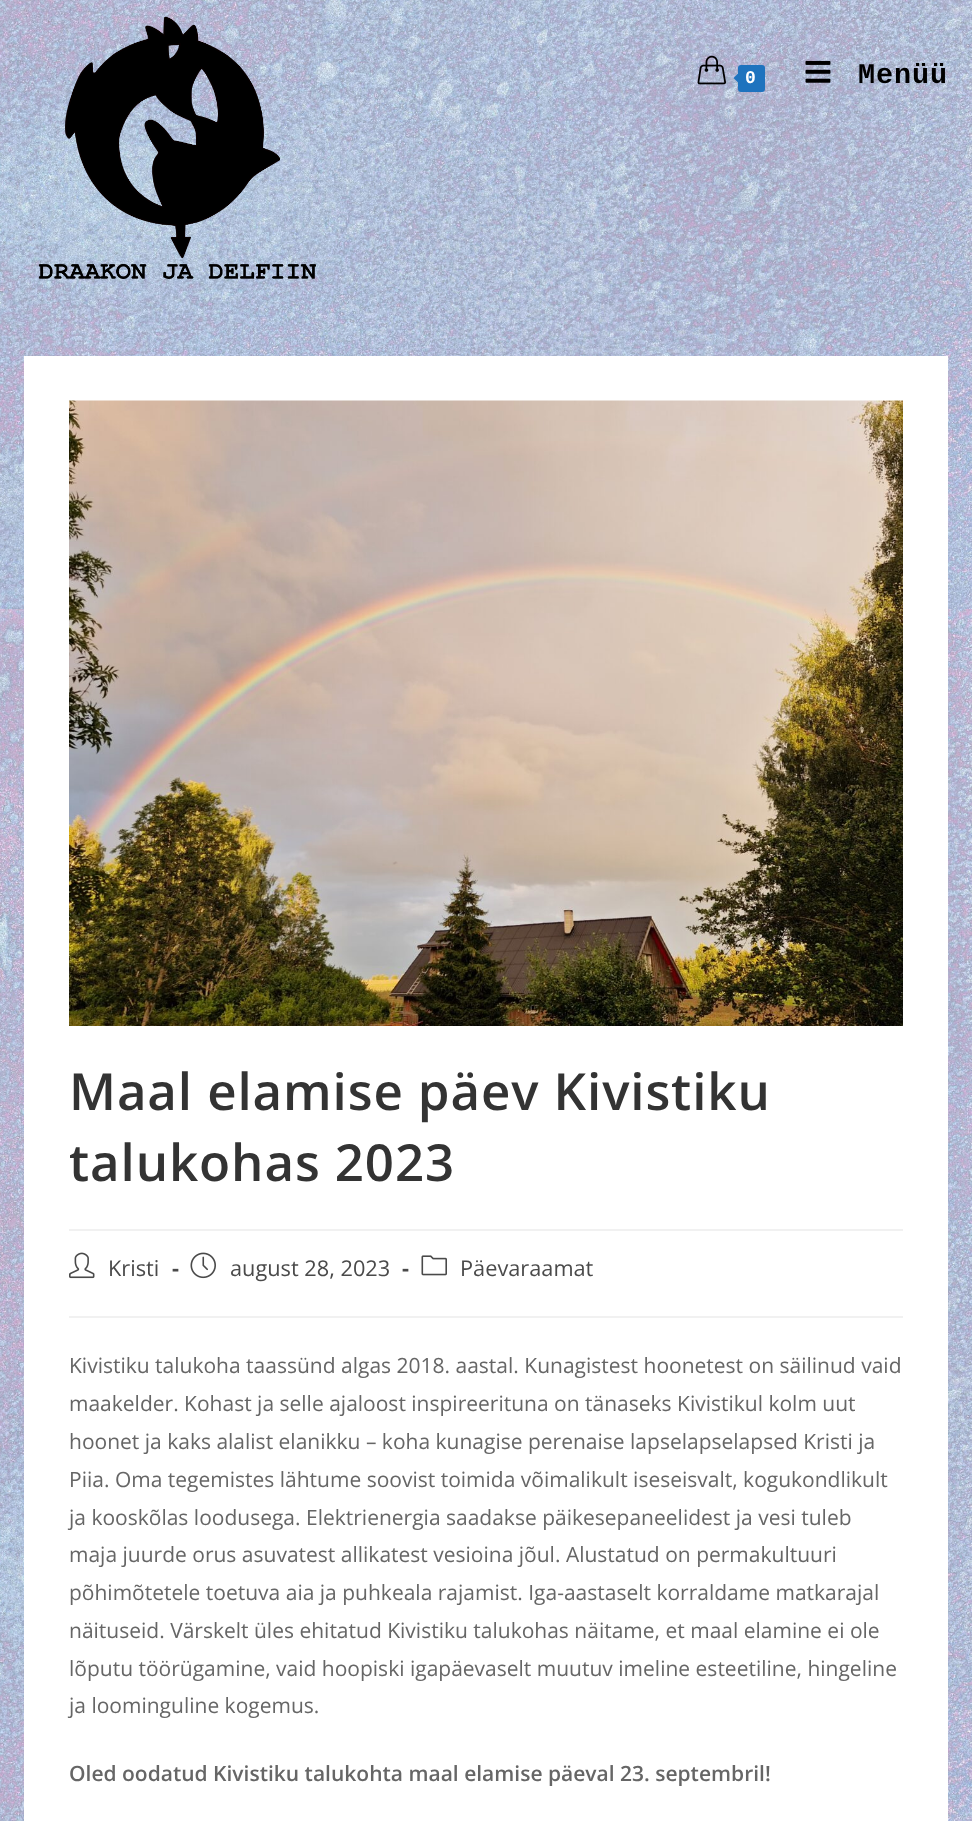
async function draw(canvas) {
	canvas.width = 972;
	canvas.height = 1821;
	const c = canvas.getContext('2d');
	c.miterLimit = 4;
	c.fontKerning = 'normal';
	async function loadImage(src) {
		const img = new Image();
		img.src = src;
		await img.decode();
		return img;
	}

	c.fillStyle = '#fff';
	c.fillRect(0, 0, 972, 1821);
	c.drawImage(await loadImage('img1.png'), 0, 0, 972, 1821);
	c.drawImage(await loadImage('img2.png'), 38, 16, 278, 263);
	c.drawImage(await loadImage('img3.png'), 697, 55, 29, 30);
	c.fillStyle = '#1e73be';
	c.beginPath();
	c.roundRect(738, 65, 27, 27, 3);
	c.fill();
	c.beginPath();
	c.moveTo(741, 70.5);
	c.lineTo(741, 85.5);
	c.lineTo(733.5, 78);
	c.closePath();
	c.fill();
	c.letterSpacing = '0.9px';
	c.font = 'bold 18px Liberation Mono';
	c.fillStyle = '#fff';
	c.fillText('0', 745, 83);
	c.drawImage(await loadImage('img4.png'), 805, 60, 26, 23);
	c.font = 'bold 28.5px Liberation Mono';
	c.fillStyle = '#000';
	c.fillText('Menüü', 858, 83);
	c.fillStyle = '#fff';
	c.fillRect(24, 356, 924, 1465);
	c.drawImage(await loadImage('img5.png'), 69, 400, 834, 626);
	c.fillStyle = '#f1f1f1';
	c.fillRect(69, 1229, 834, 2);
	c.font = '600 51px Open Sans';
	c.fillStyle = '#333';
	c.fillText('Maal elamise päev Kivistiku', 69, 1110);
	c.fillText('talukohas 2023', 69, 1181);
	c.fillStyle = '#f1f1f1';
	c.fillRect(69, 1316, 834, 2);
	c.drawImage(await loadImage('img6.png'), 69, 1252, 26, 27);
	c.letterSpacing = '0px';
	c.font = '21.75px Open Sans';
	c.fillStyle = '#4a4a4a';
	c.fillText('Kristi', 108, 1276);
	c.font = 'bold 21.75px Open Sans';
	c.fillText('-', 172, 1276);
	c.drawImage(await loadImage('img7.png'), 190, 1252, 26, 27);
	c.font = '21.75px Open Sans';
	c.fillText('august 28, 2023', 230, 1276);
	c.font = 'bold 21.75px Open Sans';
	c.fillText('-', 402, 1276);
	c.drawImage(await loadImage('img8.png'), 421, 1255, 26, 21);
	c.font = '21.75px Open Sans';
	c.fillText('Päevaraamat', 460, 1276);
	c.font = '21px Open Sans';
	c.fillStyle = '#666';
	for (const [text, x, y] of [
		['Kivistiku talukoha taassünd algas 2018. aastal. Kunagistest hoonetest on säilinud vaid', 69, 1373],
		['maakelder. Kohast ja selle ajaloost inspireerituna on tänaseks Kivistikul kolm uut', 69, 1411],
		['hoonet ja kaks alalist elanikku – koha kunagise perenaise lapselapselapsed Kristi ja', 69, 1449],
		['Piia. Oma tegemistes lähtume soovist toimida võimalikult iseseisvalt, kogukondlikult', 69, 1487],
		['ja kooskõlas loodusega. Elektrienergia saadakse päikesepaneelidest ja vesi tuleb', 69, 1525],
		['maja juurde orus asuvatest allikatest vesioina jõul. Alustatud on permakultuuri', 69, 1562],
		['põhimõtetele toetuva aia ja puhkeala rajamist. Iga-aastaselt korraldame matkarajal', 69, 1600],
		['näituseid. Värskelt üles ehitatud Kivistiku talukohas näitame, et maal elamine ei ole', 69, 1638],
		['lõputu töörügamine, vaid hoopiski igapäevaselt muutuv imeline esteetiline, hingeline', 69, 1676],
		['ja loominguline kogemus.', 69, 1713],
	]) {
		c.fillText(text, x, y);
	}
	c.font = '600 21px Open Sans';
	c.fillText('Oled oodatud Kivistiku talukohta maal elamise päeval 23. septembril!', 69, 1781);
}

draw(document.querySelector('canvas'));
